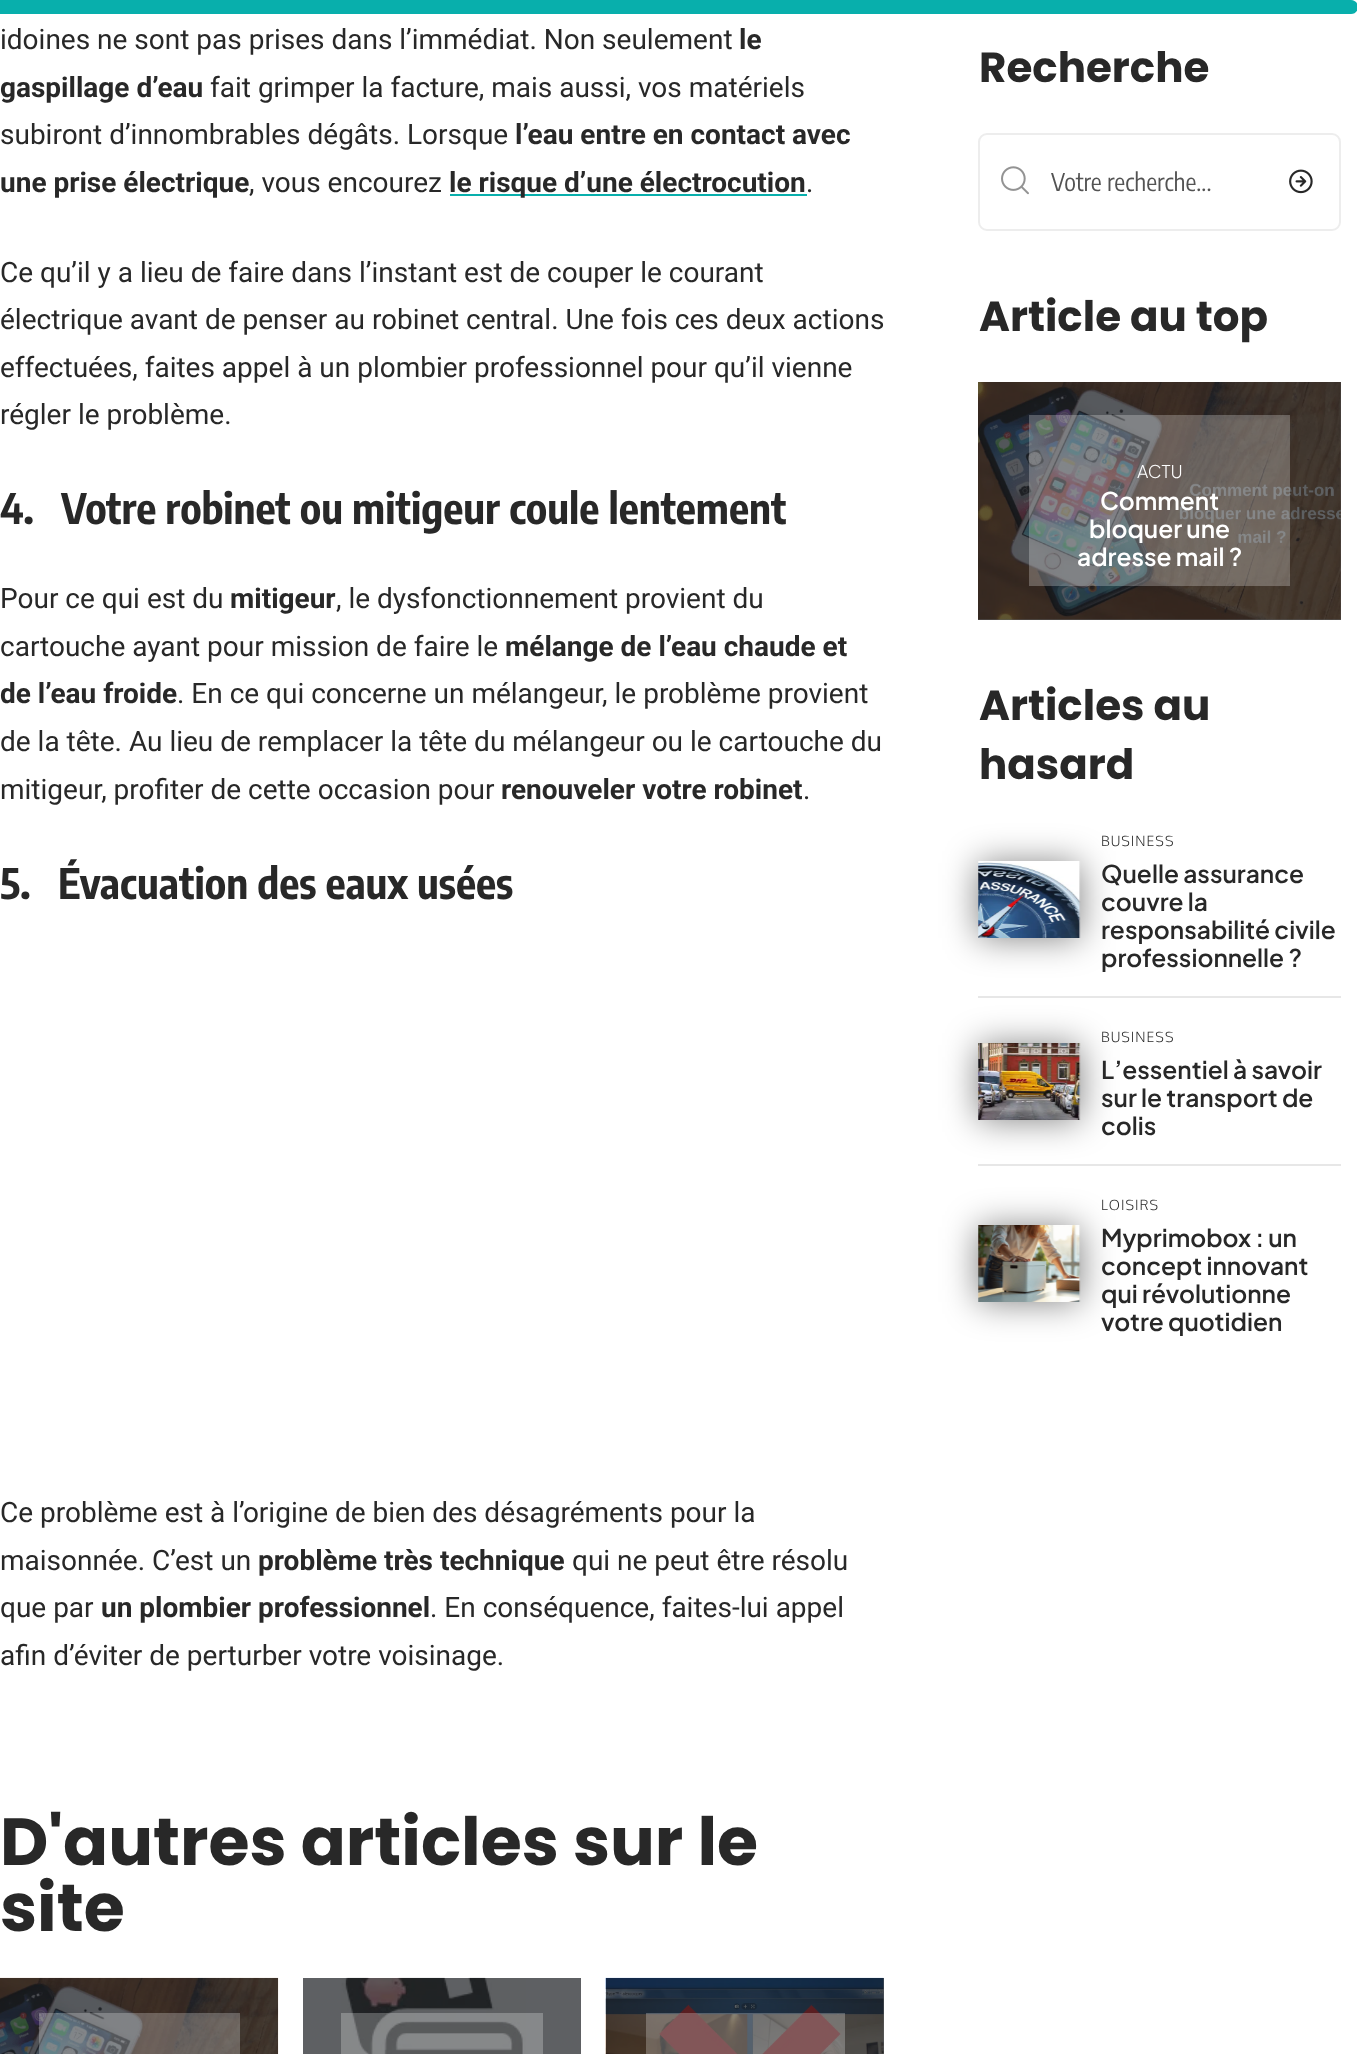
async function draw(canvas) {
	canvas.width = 1357;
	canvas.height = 2054;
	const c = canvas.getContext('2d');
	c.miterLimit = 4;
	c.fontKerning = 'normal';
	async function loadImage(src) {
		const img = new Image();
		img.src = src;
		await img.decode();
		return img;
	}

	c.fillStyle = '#fff';
	c.fillRect(0, 0, 1357, 2054);
	for (const [x, y, w, h, color] of [
		[978, 382, 363, 238, '#5e6063'],
		[883, 1978, 1, 76, '#5e6063'],
		[303, 1978, 278, 76, '#5e6063'],
	]) {
		c.fillStyle = color;
		c.fillRect(x, y, w, h);
	}
	c.fillStyle = '#08afac';
	c.beginPath();
	c.moveTo(0, 0);
	c.lineTo(1351, 0);
	c.bezierCurveTo(1355, 0, 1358, 3, 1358, 7);
	c.bezierCurveTo(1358, 11, 1355, 14, 1351, 14);
	c.lineTo(0, 14);
	c.closePath();
	c.fill();
	c.font = '28px Roboto';
	c.fillStyle = '#282828';
	c.fillText('idoines ne sont pas prises dans l’immédiat. Non seulement', 0, 49);
	c.font = 'bold 28px Roboto';
	c.fillText('le', 739, 49);
	c.fillText('gaspillage d’eau', 0, 97);
	c.font = '28px Roboto';
	c.fillText('fait grimper la facture, mais aussi, vos matériels', 210, 97);
	c.fillText('subiront d’innombrables dégâts. Lorsque', 0, 144);
	c.font = 'bold 28px Roboto';
	c.fillText('l’eau entre en contact avec', 515, 144);
	c.fillText('une prise électrique', 0, 192);
	c.font = '28px Roboto';
	c.fillText(', vous encourez', 249, 192);
	c.fillStyle = '#08afac';
	c.fillRect(450, 194, 357, 2);
	c.font = 'bold 28px Roboto';
	c.fillStyle = '#282828';
	c.fillText('le risque d’une électrocution', 449, 192);
	c.font = '28px Roboto';
	for (const [text, x, y] of [
		['.', 806, 192],
		['Ce qu’il y a lieu de faire dans l’instant est de couper le courant', 0, 282],
		['électrique avant de penser au robinet central. Une fois ces deux actions', 0, 329],
		['effectuées, faites appel à un plombier professionnel pour qu’il vienne', 0, 377],
		['régler le problème.', 0, 424],
	]) {
		c.fillText(text, x, y);
	}
	c.font = 'bold 42px Encode Sans Condensed';
	c.fillText('4.', 0, 524);
	c.fillText('Votre robinet ou mitigeur coule lentement', 61, 524);
	c.font = '28px Roboto';
	c.fillText('Pour ce qui est du', 0, 608);
	c.font = 'bold 28px Roboto';
	c.fillText('mitigeur', 230, 608);
	c.font = '28px Roboto';
	c.fillText(', le dysfonctionnement provient du', 336, 608);
	c.fillText('cartouche ayant pour mission de faire le', 0, 656);
	c.font = 'bold 28px Roboto';
	c.fillText('mélange de l’eau chaude et', 505, 656);
	c.fillText('de l’eau froide', 0, 703);
	c.font = '28px Roboto';
	for (const [text, x, y] of [
		['. En ce qui concerne un mélangeur, le problème provient', 177, 703],
		['de la tête. Au lieu de remplacer la tête du mélangeur ou le cartouche du', 0, 751],
		['mitigeur, profiter de cette occasion pour', 0, 799],
	]) {
		c.fillText(text, x, y);
	}
	c.font = 'bold 28px Roboto';
	c.fillText('renouveler votre robinet', 501, 799);
	c.font = '28px Roboto';
	c.fillText('.', 803, 799);
	c.font = 'bold 42px Encode Sans Condensed';
	c.fillText('5.', 0, 899);
	c.fillText('Évacuation des eaux usées', 58, 899);
	c.font = '28px Roboto';
	c.fillText('Ce problème est à l’origine de bien des désagréments pour la', 0, 1522);
	c.fillText('maisonnée. C’est un', 0, 1570);
	c.font = 'bold 28px Roboto';
	c.fillText('problème très technique', 258, 1570);
	c.font = '28px Roboto';
	c.fillText('qui ne peut être résolu', 572, 1570);
	c.fillText('que par', 0, 1617);
	c.font = 'bold 28px Roboto';
	c.fillText('un plombier professionnel', 101, 1617);
	c.font = '28px Roboto';
	c.fillText('. En conséquence, faites-lui appel', 430, 1617);
	c.fillText('afin d’éviter de perturber votre voisinage.', 0, 1665);
	c.font = 'bold 66.5px Poppins';
	c.fillText('D\'autres articles sur le', 0, 1865);
	c.fillText('site', 0, 1931);
	c.drawImage(await loadImage('img1.png'), 0, 1977, 279, 77);
	c.fillStyle = '#ffffff40';
	c.fillRect(39, 2013, 201, 41);
	c.drawImage(await loadImage('img2.png'), 341, 1977, 185, 77);
	c.fillRect(341, 2013, 202, 41);
	c.drawImage(await loadImage('img3.png'), 605, 1977, 279, 77);
	c.fillRect(646, 2013, 199, 41);
	c.font = 'bold 42px Poppins';
	c.fillStyle = '#282828';
	c.fillText('Recherche', 979, 82);
	c.beginPath();
	c.roundRect(979, 134, 361, 96, 8);
	c.strokeStyle = '#ededed';
	c.lineWidth = 2;
	c.stroke();
	c.drawImage(await loadImage('img4.png'), 1001, 166, 28, 29);
	c.font = '24.5px Encode Sans Condensed';
	c.fillStyle = '#535353';
	c.fillText('Votre recherche...', 1051, 191);
	c.drawImage(await loadImage('img5.png'), 1289, 169, 24, 25);
	c.font = 'bold 42px Poppins';
	c.fillStyle = '#282828';
	c.fillText('Article au top', 979, 331);
	c.drawImage(await loadImage('img6.png'), 978, 382, 363, 238);
	c.fillStyle = '#ffffff40';
	c.fillRect(1029, 415, 261, 171);
	c.font = '300 17.5px Plus Jakarta Sans';
	c.fillStyle = '#fff';
	c.fillText('ACTU', 1137, 478);
	c.font = '600 24.5px Plus Jakarta Sans';
	for (const [text, x, y] of [
		['Comment', 1100, 510],
		['bloquer une', 1089, 538],
		['adresse mail ?', 1077, 566],
	]) {
		c.fillText(text, x, y);
	}
	c.font = 'bold 42px Poppins';
	c.fillStyle = '#282828';
	c.fillText('Articles au', 979, 720);
	c.fillText('hasard', 979, 779);
	c.fillStyle = '#00000080';
	c.filter = 'blur(17.5px)';
	c.beginPath();
	c.rect(978, 863, 102, 75);
	c.fill();
	c.filter = 'none';
	c.drawImage(await loadImage('img7.png'), 978, 861, 103, 77);
	c.letterSpacing = '1px';
	c.font = '300 14px Oxygen';
	c.fillStyle = '#282828';
	c.fillText('BUSINESS', 1101, 846);
	c.letterSpacing = '0px';
	c.font = '600 24.5px Plus Jakarta Sans';
	for (const [text, x, y] of [
		['Quelle assurance', 1101, 883],
		['couvre la', 1101, 911],
		['responsabilité civile', 1101, 939],
		['professionnelle ?', 1101, 967],
	]) {
		c.fillText(text, x, y);
	}
	c.fillStyle = '#e7e7e7';
	c.fillRect(978, 996, 363, 2);
	c.fillRect(978, 1164, 363, 2);
	c.fillStyle = '#00000080';
	c.filter = 'blur(17.5px)';
	c.beginPath();
	c.rect(978, 1045, 102, 75);
	c.fill();
	c.filter = 'none';
	c.drawImage(await loadImage('img8.png'), 978, 1043, 103, 77);
	c.letterSpacing = '1px';
	c.font = '300 14px Oxygen';
	c.fillStyle = '#282828';
	c.fillText('BUSINESS', 1101, 1042);
	c.letterSpacing = '0px';
	c.font = '600 24.5px Plus Jakarta Sans';
	for (const [text, x, y] of [
		['L’essentiel à savoir', 1101, 1079],
		['sur le transport de', 1101, 1107],
		['colis', 1101, 1135],
	]) {
		c.fillText(text, x, y);
	}
	c.fillStyle = '#00000080';
	c.filter = 'blur(17.5px)';
	c.beginPath();
	c.rect(978, 1227, 102, 75);
	c.fill();
	c.filter = 'none';
	c.drawImage(await loadImage('img9.png'), 978, 1225, 103, 77);
	c.letterSpacing = '1px';
	c.font = '300 14px Oxygen';
	c.fillStyle = '#282828';
	c.fillText('LOISIRS', 1101, 1210);
	c.letterSpacing = '0px';
	c.font = '600 24.5px Plus Jakarta Sans';
	for (const [text, x, y] of [
		['Myprimobox : un', 1101, 1247],
		['concept innovant', 1101, 1275],
		['qui révolutionne', 1101, 1303],
		['votre quotidien', 1101, 1331],
	]) {
		c.fillText(text, x, y);
	}
}

draw(document.querySelector('canvas'));
